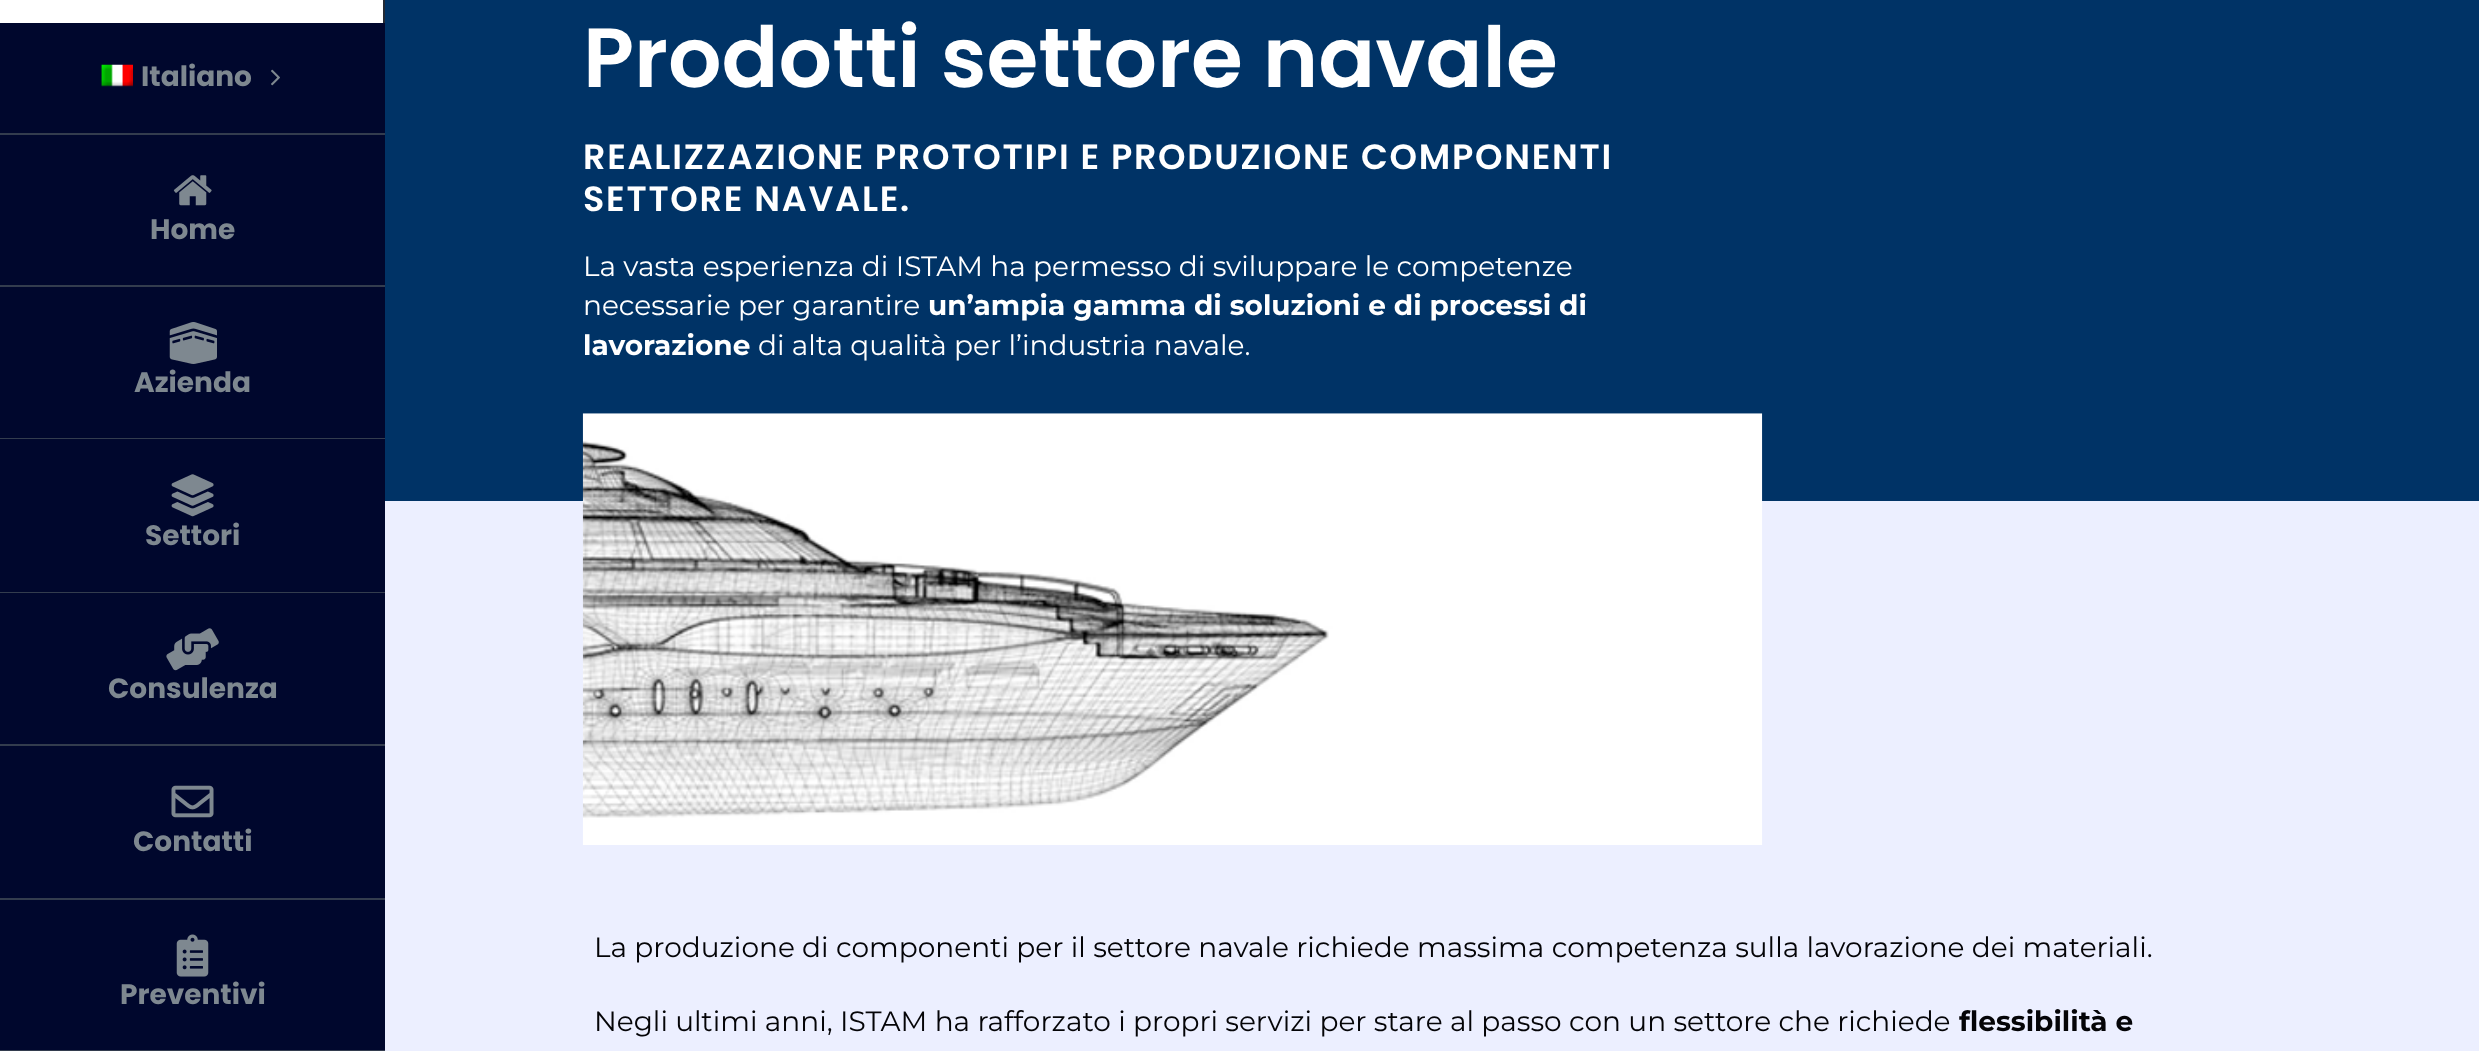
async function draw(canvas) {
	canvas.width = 2479;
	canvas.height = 1051;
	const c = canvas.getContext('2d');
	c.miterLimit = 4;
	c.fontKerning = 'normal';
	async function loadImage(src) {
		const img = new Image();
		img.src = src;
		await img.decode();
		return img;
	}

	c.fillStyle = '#036';
	c.fillRect(0, 0, 2479, 1051);
	for (const [x, y, w, h, color] of [
		[0, 0, 383, 23, '#fff'],
		[383, 0, 2, 23, '#232a34'],
		[0, 23, 385, 110, '#00072d'],
	]) {
		c.fillStyle = color;
		c.fillRect(x, y, w, h);
	}
	c.drawImage(await loadImage('img1.png'), 101, 64, 32, 23);
	c.font = 'bold 28px Poppins';
	c.fillStyle = '#7e8890';
	c.fillText('Italiano', 141, 86);
	c.drawImage(await loadImage('img2.png'), 271, 69, 9, 17);
	c.fillStyle = '#333c4e';
	c.fillRect(0, 133, 385, 2);
	c.fillStyle = '#00072d';
	c.fillRect(0, 135, 385, 150);
	c.drawImage(await loadImage('img3.png'), 173, 175, 39, 31);
	c.fillStyle = '#7e8890';
	c.fillText('Home', 150, 239);
	c.fillStyle = '#333c4e';
	c.fillRect(0, 285, 385, 2);
	c.fillStyle = '#00072d';
	c.fillRect(0, 287, 385, 151);
	c.drawImage(await loadImage('img4.png'), 169, 322, 48, 42);
	c.fillStyle = '#7e8890';
	c.fillText('Azienda', 134, 392);
	for (const [x, y, w, h, color] of [
		[0, 438, 385, 1, '#333c4e'],
		[0, 439, 385, 153, '#00072d'],
		[0, 592, 385, 1, '#333c4e'],
	]) {
		c.fillStyle = color;
		c.fillRect(x, y, w, h);
	}
	c.drawImage(await loadImage('img5.png'), 171, 474, 43, 43);
	c.fillStyle = '#7e8890';
	c.fillText('Settori', 145, 545);
	c.fillStyle = '#00072d';
	c.fillRect(0, 593, 385, 151);
	c.fillStyle = '#333c4e';
	c.fillRect(0, 744, 385, 2);
	c.drawImage(await loadImage('img6.png'), 166, 628, 53, 43);
	c.fillStyle = '#7e8890';
	c.fillText('Consulenza', 108, 698);
	c.fillStyle = '#00072d';
	c.fillRect(0, 746, 385, 152);
	c.drawImage(await loadImage('img7.png'), 171, 785, 43, 33);
	c.fillStyle = '#7e8890';
	c.fillText('Contatti', 133, 851);
	c.fillStyle = '#333c4e';
	c.fillRect(0, 898, 385, 2);
	c.fillStyle = '#00072d';
	c.fillRect(0, 900, 385, 150);
	c.drawImage(await loadImage('img8.png'), 176, 934, 33, 43);
	c.fillStyle = '#7e8890';
	c.fillText('Preventivi', 120, 1004);
	c.fillStyle = '#333c4e';
	c.fillRect(0, 1050, 385, 1);
	c.font = '600 84px Poppins';
	c.fillStyle = '#fff';
	c.fillText('Prodotti settore navale', 583, 87);
	c.letterSpacing = '1.75px';
	c.font = '600 35px Poppins';
	c.fillText('REALIZZAZIONE PROTOTIPI E PRODUZIONE COMPONENTI', 583, 169);
	c.fillText('SETTORE NAVALE.', 583, 211);
	c.letterSpacing = '0px';
	c.font = '28px Montserrat';
	c.fillText('La vasta esperienza di ISTAM ha permesso di sviluppare le competenze', 583, 276);
	c.fillText('necessarie per garantire', 583, 315);
	c.font = 'bold 28px Montserrat';
	c.fillText('un’ampia gamma di soluzioni e di processi di', 928, 315);
	c.fillText('lavorazione', 583, 355);
	c.font = '28px Montserrat';
	c.fillText('di alta qualità per l’industria navale.', 758, 355);
	c.fillStyle = '#ecefff';
	c.fillRect(385, 501, 2094, 550);
	c.drawImage(await loadImage('img9.png'), 582, 413, 1181, 432);
	c.fillStyle = '#040407';
	c.fillText('La produzione di componenti per il settore navale richiede massima competenza sulla lavorazione dei materiali.', 594, 957);
	c.fillText('Negli ultimi anni, ISTAM ha rafforzato i propri servizi per stare al passo con un settore che richiede', 594, 1031);
	c.font = 'bold 28px Montserrat';
	c.fillText('flessibilità e', 1959, 1031);
}

draw(document.querySelector('canvas'));
